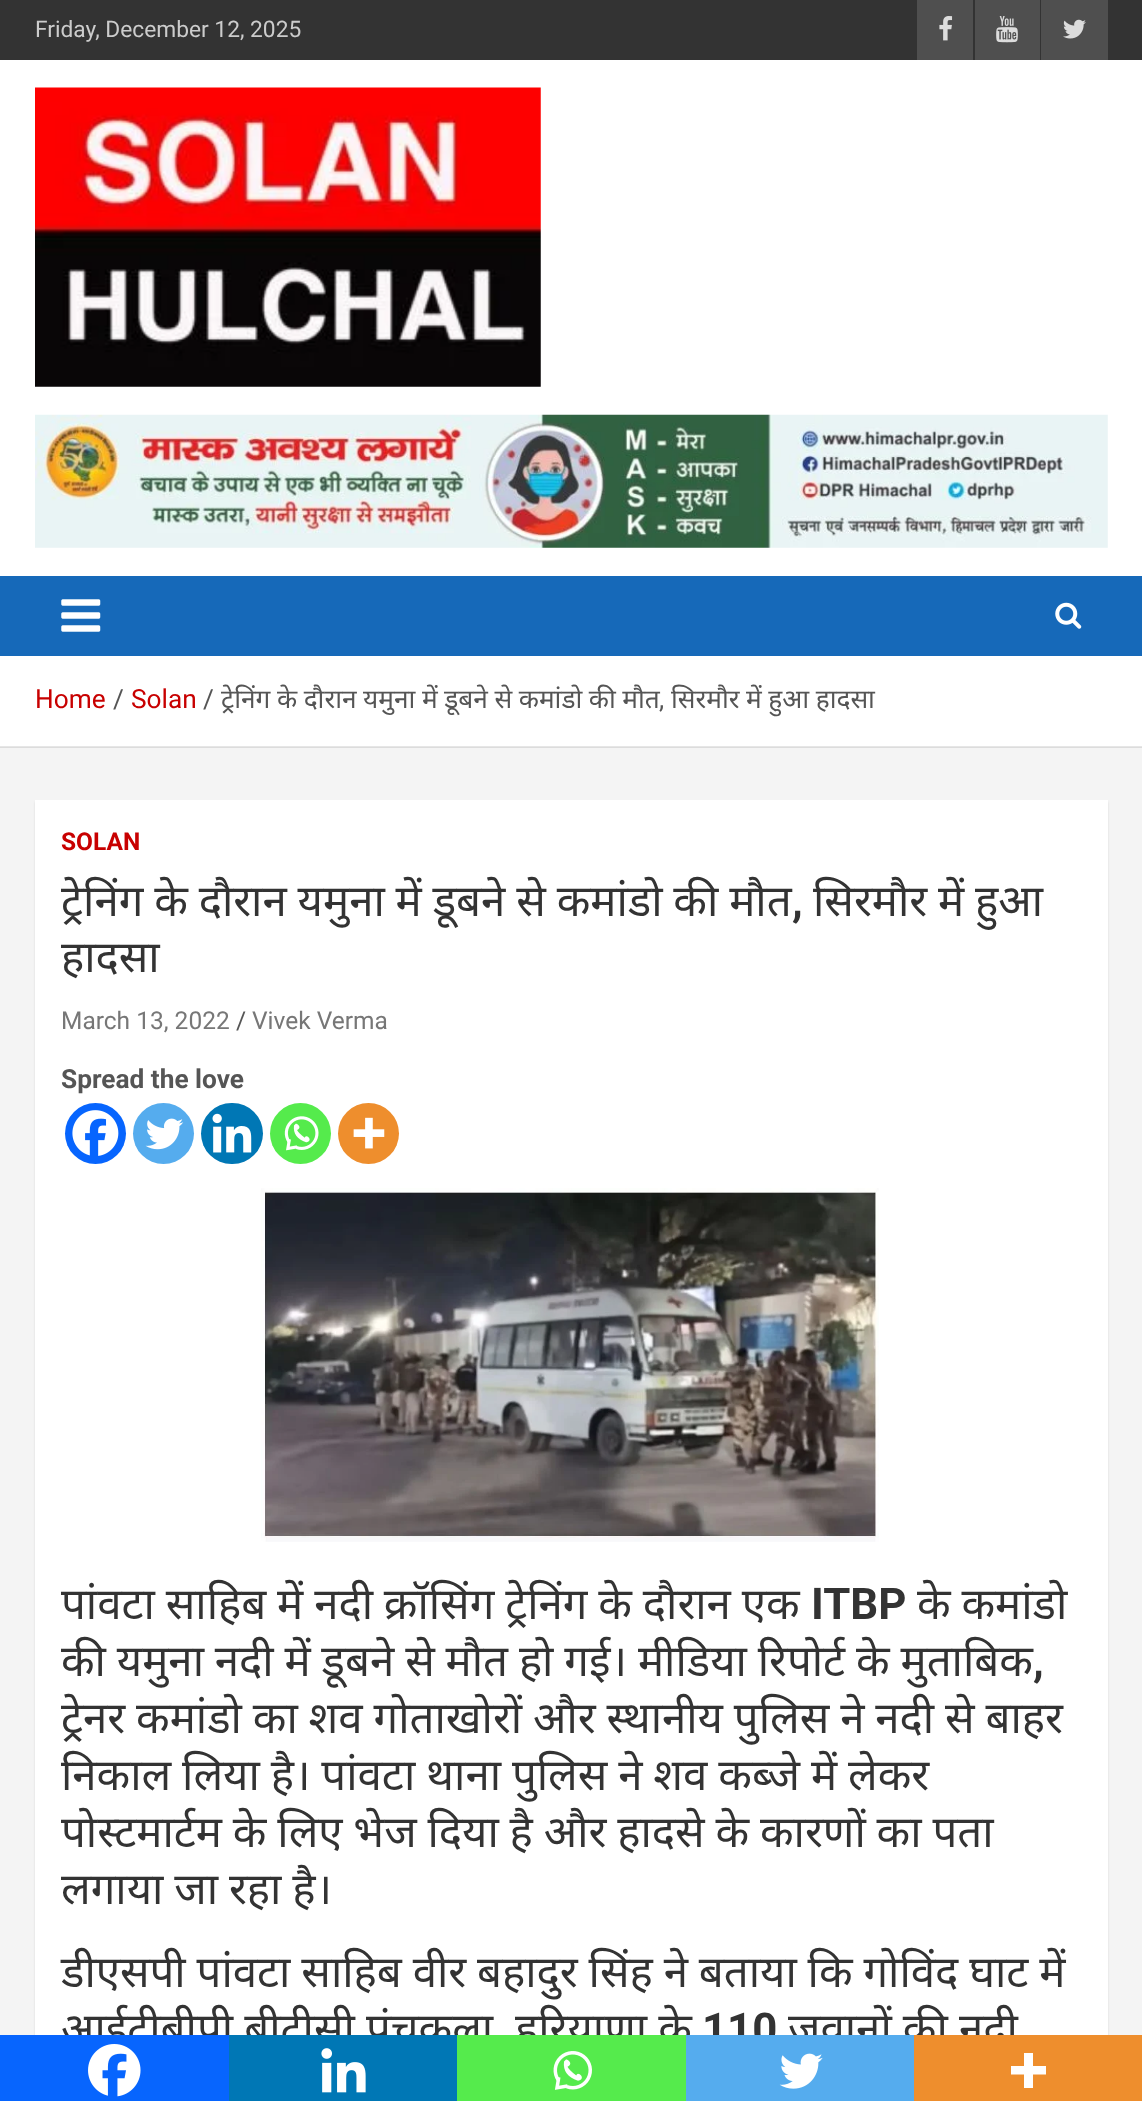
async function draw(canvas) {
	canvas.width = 1142;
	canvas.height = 2101;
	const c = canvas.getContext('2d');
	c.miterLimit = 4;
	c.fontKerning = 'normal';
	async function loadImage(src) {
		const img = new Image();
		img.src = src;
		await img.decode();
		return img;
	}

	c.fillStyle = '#f4f4f4';
	c.fillRect(0, 0, 1142, 2101);
	c.fillStyle = '#dcdcdc';
	c.fillRect(0, 747, 1142, 1);
	c.fillStyle = '#333';
	c.fillRect(0, 0, 1142, 60);
	c.font = '22.75px Roboto';
	c.fillStyle = '#ccc';
	c.fillText('Friday, December 12, 2025', 35, 37);
	c.fillStyle = '#4f4f4f';
	c.fillRect(917, 0, 56, 60);
	c.drawImage(await loadImage('img1.png'), 939, 16, 14, 25);
	c.fillRect(975, 0, 65, 60);
	c.drawImage(await loadImage('img2.png'), 996, 16, 22, 27);
	c.fillRect(1041, 0, 67, 60);
	c.drawImage(await loadImage('img3.png'), 1063, 19, 23, 20);
	c.fillStyle = '#fff';
	c.fillRect(0, 60, 1142, 516);
	c.drawImage(await loadImage('img4.png'), 35, 87, 506, 300);
	c.drawImage(await loadImage('img5.png'), 35, 414, 1073, 134);
	c.fillStyle = '#1669b9';
	c.fillRect(0, 576, 1142, 80);
	c.drawImage(await loadImage('img6.png'), 61, 599, 40, 33);
	c.drawImage(await loadImage('img7.png'), 1055, 602, 27, 27);
	c.fillStyle = '#fff';
	c.fillRect(0, 656, 1142, 90);
	c.fillStyle = '#e6e6e6';
	c.fillRect(0, 746, 1142, 1);
	c.font = '26.25px Roboto';
	c.fillStyle = '#c80000';
	c.fillText('Home', 35, 708);
	c.fillStyle = '#555';
	c.fillText('/', 113, 708);
	c.fillStyle = '#c80000';
	c.fillText('Solan', 131, 708);
	c.fillStyle = '#555';
	c.fillText('/', 203, 708);
	c.wordSpacing = '-0.25px';
	c.font = '26.25px Noto Sans';
	c.fillText('ट्रेनिंग के दौरान यमुना में डूबने से कमांडो की मौत', 221, 708);
	c.wordSpacing = '0px';
	c.font = '26.25px Roboto';
	c.fillText(',', 659, 708);
	c.wordSpacing = '-0.25px';
	c.font = '26.25px Noto Sans';
	c.fillText('सिरमौर में हुआ हादसा', 671, 708);
	c.fillStyle = '#0000001a';
	c.filter = 'blur(1px)';
	c.beginPath();
	c.rect(35, 802, 1073, 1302);
	c.fill();
	c.filter = 'none';
	c.fillStyle = '#fff';
	c.fillRect(35, 800, 1073, 1235);
	c.wordSpacing = '0px';
	c.font = 'bold 24.5px Roboto';
	c.fillStyle = '#c80000';
	c.fillText('SOLAN', 61, 850);
	c.wordSpacing = '-0.5px';
	c.font = '43.75px Noto Sans';
	c.fillStyle = '#333';
	c.fillText('ट्रेनिंग के दौरान यमुना में डूबने से कमांडो की मौत', 61, 916);
	c.wordSpacing = '0px';
	c.font = 'bold 43.75px Roboto';
	c.fillText(',', 792, 916);
	c.wordSpacing = '-0.5px';
	c.font = '43.75px Noto Sans';
	c.fillText('सिरमौर में हुआ', 813, 916);
	c.wordSpacing = '0px';
	c.fillText('हादसा', 61, 972);
	c.font = '24.5px Roboto';
	c.fillStyle = '#777';
	c.fillText('March 13, 2022', 61, 1029);
	c.fillStyle = '#555';
	c.fillText('/', 236, 1029);
	c.fillStyle = '#777';
	c.fillText('Vivek Verma', 252, 1029);
	c.font = 'bold 26.25px Roboto';
	c.fillStyle = '#555';
	c.fillText('Spread the love', 61, 1088);
	c.fillStyle = '#0765fe';
	c.beginPath();
	c.arc(95.5, 1133.5, 30.5, 0, 2 * Math.PI);
	c.fill();
	c.drawImage(await loadImage('img8.png'), 72, 1110, 47, 46);
	c.fillStyle = '#55acee';
	c.beginPath();
	c.arc(163.5, 1133.5, 30.5, 0, 2 * Math.PI);
	c.fill();
	c.drawImage(await loadImage('img9.png'), 145, 1118, 39, 32);
	c.fillStyle = '#0077b5';
	c.beginPath();
	c.roundRect(201, 1103, 62, 61, 30.5);
	c.fill();
	c.drawImage(await loadImage('img10.png'), 212, 1113, 40, 40);
	c.fillStyle = '#55eb4c';
	c.beginPath();
	c.arc(300.5, 1133.5, 30.5, 0, 2 * Math.PI);
	c.fill();
	c.drawImage(await loadImage('img11.png'), 284, 1116, 35, 35);
	c.fillStyle = '#ee8e2d';
	c.beginPath();
	c.arc(368.5, 1133.5, 30.5, 0, 2 * Math.PI);
	c.fill();
	c.drawImage(await loadImage('img12.png'), 353, 1117, 32, 32);
	c.drawImage(await loadImage('img13.png'), 261, 1188, 618, 354);
	c.wordSpacing = '-0.5px';
	c.font = '43.75px Noto Sans';
	c.fillStyle = '#333';
	c.fillText('पांवटा साहिब में नदी क्रॉसिंग ट्रेनिंग के दौरान एक', 61, 1619);
	c.wordSpacing = '0px';
	c.font = 'bold 43.75px Roboto';
	c.fillText('ITBP', 811, 1619);
	c.wordSpacing = '-0.5px';
	c.font = '43.75px Noto Sans';
	c.fillText('के कमांडो', 917, 1619);
	c.fillText('की यमुना नदी में डूबने से मौत हो गई। मीडिया रिपोर्ट के मुताबिक', 61, 1676);
	c.wordSpacing = '0px';
	c.font = 'bold 43.75px Roboto';
	c.fillText(',', 1033, 1676);
	c.wordSpacing = '-0.5px';
	c.font = '43.75px Noto Sans';
	for (const [text, x, y] of [
		['ट्रेनर कमांडो का शव गोताखोरों और स्थानीय पुलिस ने नदी से बाहर', 61, 1733],
		['निकाल लिया है। पांवटा थाना पुलिस ने शव कब्जे में लेकर', 61, 1790],
		['पोस्टमार्टम के लिए भेज दिया है और हादसे के कारणों का पता', 61, 1847],
		['लगाया जा रहा है।', 61, 1904],
		['डीएसपी पांवटा साहिब वीर बहादुर सिंह ने बताया कि गोविंद घाट में', 61, 1987],
	]) {
		c.fillText(text, x, y);
	}
	c.wordSpacing = '-0.25px';
	c.fillText('आईटीबीपी बीटीसी पंचकूला', 61, 2044);
	c.fillText('हरियाणा के', 515, 2044);
	c.wordSpacing = '0px';
	c.font = 'bold 43.75px Roboto';
	c.fillText('110', 702, 2044);
	c.wordSpacing = '-0.25px';
	c.font = '43.75px Noto Sans';
	c.fillText('जवानों की नदी', 788, 2044);
	c.fillStyle = '#0765fe';
	c.fillRect(0, 2035, 229, 66);
	c.drawImage(await loadImage('img14.png'), 88, 2044, 53, 53);
	c.fillStyle = '#0077b5';
	c.fillRect(229, 2035, 228, 66);
	c.drawImage(await loadImage('img15.png'), 321, 2048, 45, 45);
	c.fillStyle = '#55eb4c';
	c.fillRect(457, 2035, 229, 66);
	c.drawImage(await loadImage('img16.png'), 553, 2051, 39, 39);
	c.fillStyle = '#55acee';
	c.fillRect(686, 2035, 228, 66);
	c.drawImage(await loadImage('img17.png'), 779, 2053, 44, 36);
	c.fillStyle = '#ee8e2d';
	c.fillRect(914, 2035, 228, 66);
	c.fillStyle = '#fff';
	c.beginPath();
	c.moveTo(1033, 2066);
	c.lineTo(1033, 2053);
	c.lineTo(1024, 2053);
	c.lineTo(1024, 2066);
	c.lineTo(1011, 2066);
	c.lineTo(1011, 2074.5);
	c.lineTo(1024, 2074.5);
	c.lineTo(1024, 2088);
	c.lineTo(1033, 2088);
	c.lineTo(1033, 2074.5);
	c.lineTo(1046, 2074.5);
	c.lineTo(1046, 2066);
	c.closePath();
	c.fill('evenodd');
}

draw(document.querySelector('canvas'));
